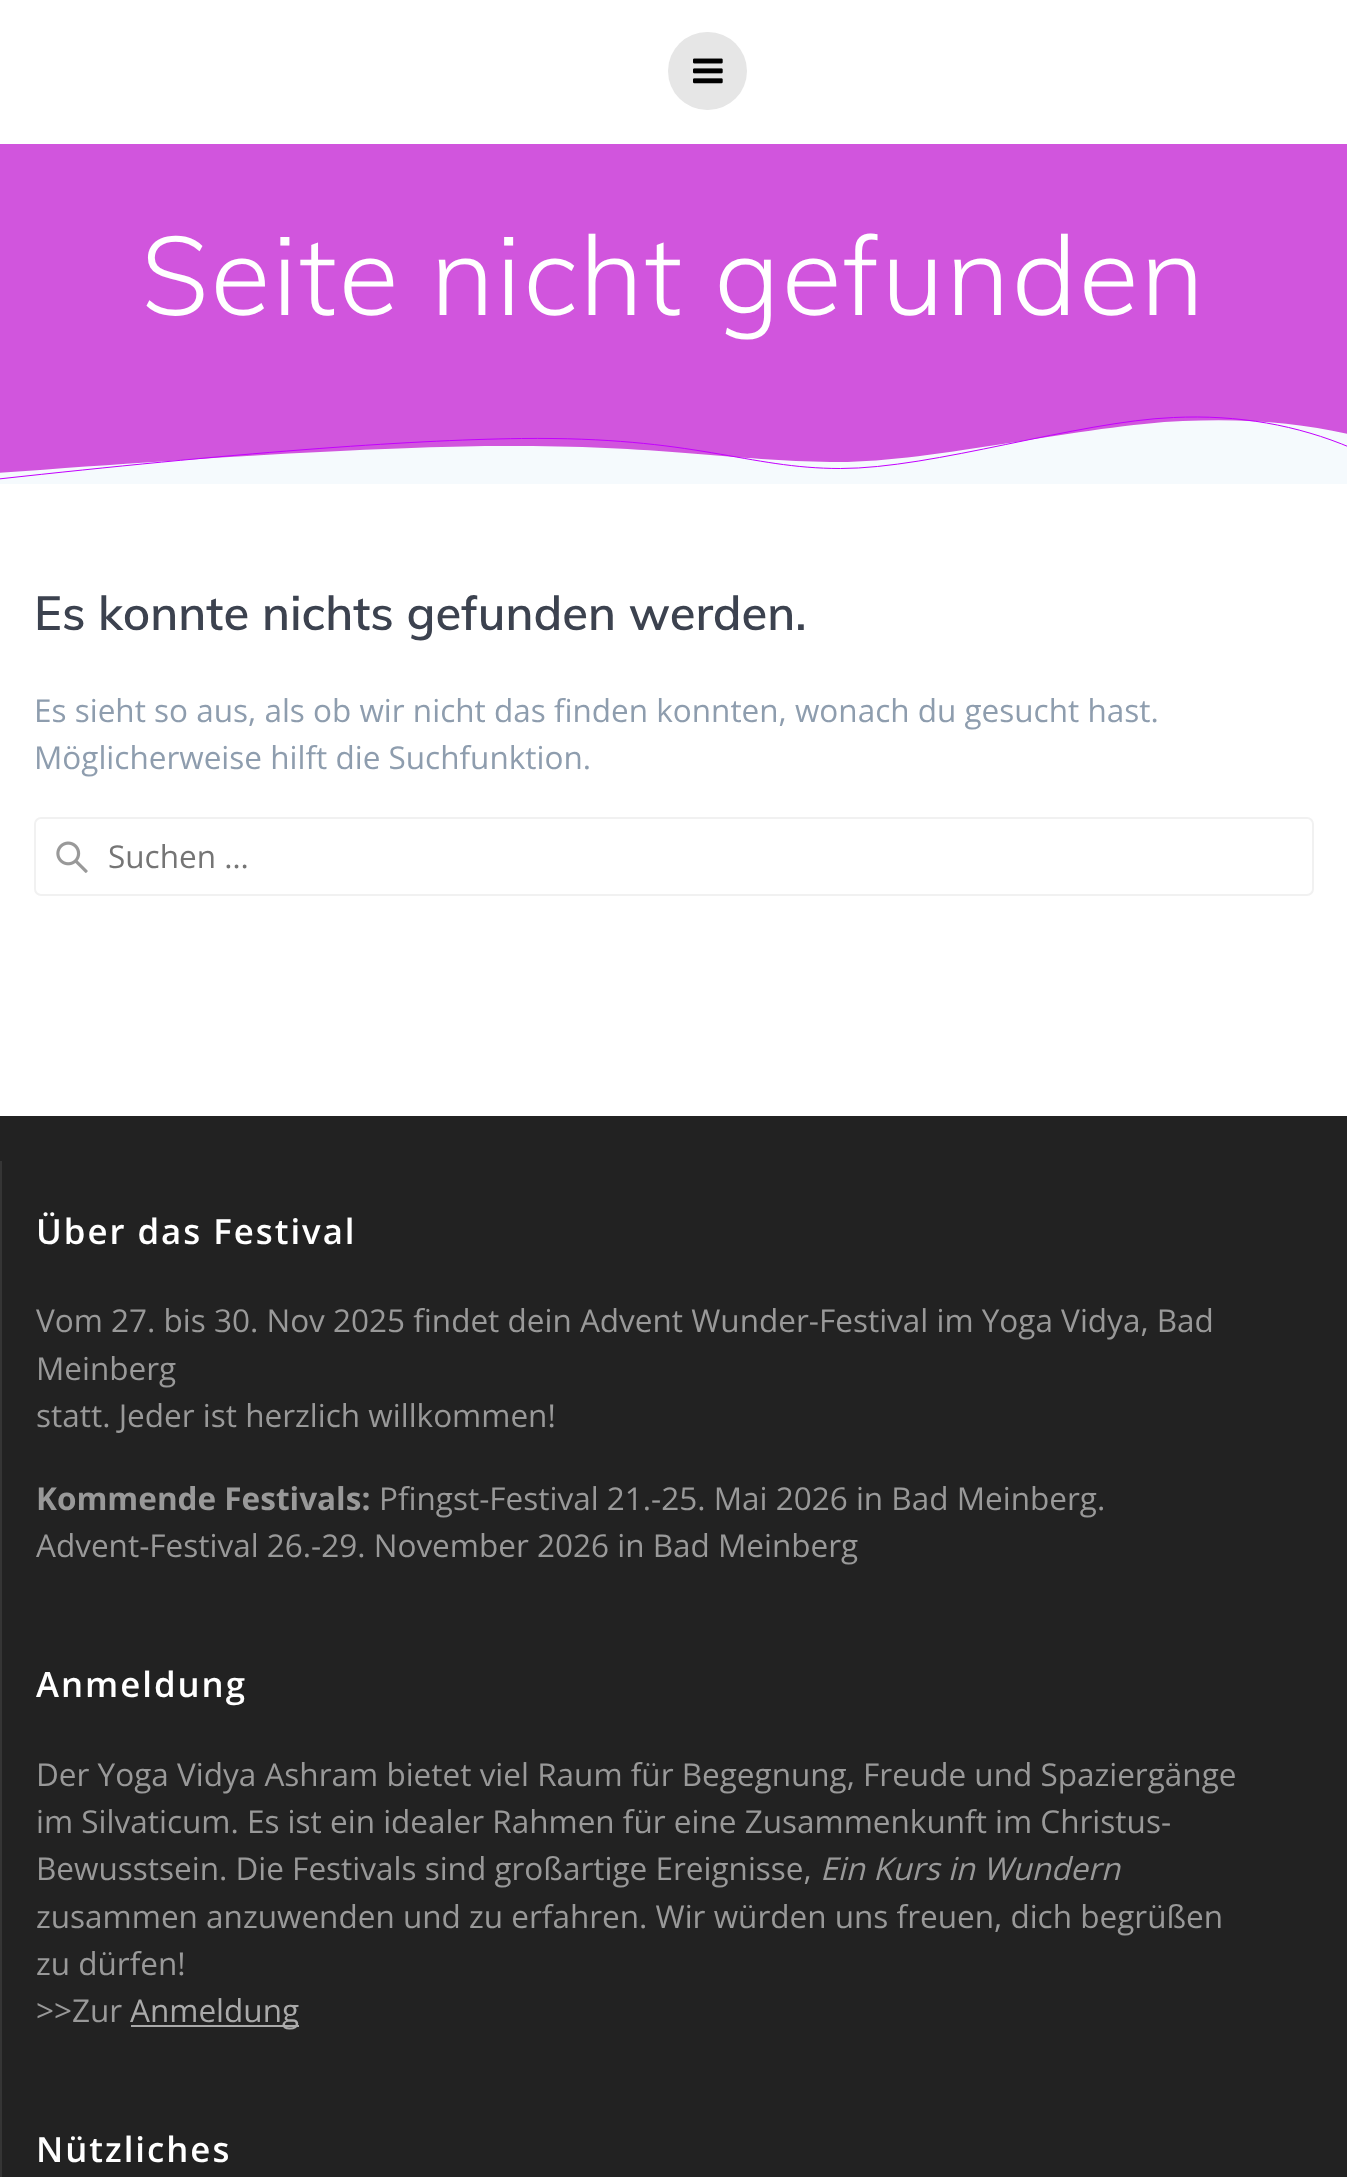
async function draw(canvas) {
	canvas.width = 1347;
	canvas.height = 2177;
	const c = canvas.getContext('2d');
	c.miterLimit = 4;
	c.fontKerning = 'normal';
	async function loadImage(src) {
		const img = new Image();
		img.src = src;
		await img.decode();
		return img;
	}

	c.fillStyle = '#d155dd';
	c.fillRect(0, 0, 1347, 2177);
	c.fillStyle = '#fff';
	c.fillRect(0, 0, 1347, 144);
	c.fillStyle = '#e6e6e6';
	c.beginPath();
	c.roundRect(668, 32, 79, 78, 39);
	c.fill();
	c.drawImage(await loadImage('img1.png'), 693, 58, 30, 26);
	c.letterSpacing = '2px';
	c.font = '300 110.25px Muli';
	c.fillStyle = '#fff';
	c.fillText('Seite nicht gefunden', 141, 315);
	c.fillStyle = '#f5fafd';
	c.beginPath();
	c.moveTo(-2, 473);
	c.bezierCurveTo(250, 454, 424, 445, 519, 446);
	c.bezierCurveTo(663, 446, 746, 462, 839, 462);
	c.bezierCurveTo(932, 462, 1086, 425, 1183, 421);
	c.bezierCurveTo(1247, 418, 1303, 423, 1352, 435);
	c.lineTo(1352, 488);
	c.lineTo(-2, 489);
	c.closePath();
	c.fill();
	c.beginPath();
	c.moveTo(-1.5, 479);
	c.bezierCurveTo(230, 453.5, 404.5, 440, 521.5, 438.5);
	c.bezierCurveTo(697, 436.5, 747, 468.5, 840.5, 468.5);
	c.bezierCurveTo(933.5, 468.5, 1077, 421.5, 1173.5, 417.5);
	c.bezierCurveTo(1238, 414.5, 1297.5, 425, 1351.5, 448);
	c.strokeStyle = '#c300ff';
	c.stroke();
	c.fillStyle = '#fff';
	c.fillRect(0, 484, 1347, 632);
	c.letterSpacing = '0px';
	c.font = '600 47.25px Muli';
	c.fillStyle = '#3c424f';
	c.fillText('Es konnte nichts gefunden werden.', 34, 630);
	c.font = '31.5px Open Sans';
	c.fillStyle = '#8e9dae';
	c.fillText('Es sieht so aus, als ob wir nicht das finden konnten, wonach du gesucht hast.', 34, 722);
	c.fillText('Möglicherweise hilft die Suchfunktion.', 34, 769);
	c.drawImage(await loadImage('img2.png'), 56, 841, 32, 32);
	c.beginPath();
	c.roundRect(35, 818, 1278, 77, 6);
	c.strokeStyle = '#f1f1f1';
	c.lineWidth = 2;
	c.stroke();
	c.fillStyle = '#757575';
	c.fillText('Suchen …', 108, 868);
	c.fillStyle = '#222';
	c.fillRect(0, 1116, 1347, 1061);
	c.fillStyle = '#353535';
	c.fillRect(0, 1161, 2, 1016);
	c.letterSpacing = '2px';
	c.font = '600 34.75px Open Sans';
	c.fillStyle = '#fff';
	c.fillText('Über das Festival', 36, 1244);
	c.letterSpacing = '0px';
	c.font = '31.5px Open Sans';
	c.fillStyle = '#999';
	for (const [text, x, y] of [
		['Vom 27. bis 30. Nov 2025 findet dein Advent Wunder-Festival im Yoga Vidya, Bad', 36, 1332],
		['Meinberg', 36, 1380],
		['statt. Jeder ist herzlich willkommen!', 36, 1427],
	]) {
		c.fillText(text, x, y);
	}
	c.font = 'bold 31.5px Open Sans';
	c.fillText('Kommende Festivals:', 36, 1510);
	c.font = '31.5px Open Sans';
	c.fillText('Pfingst-Festival 21.-25. Mai 2026 in Bad Meinberg.', 379, 1510);
	c.fillText('Advent-Festival 26.-29. November 2026 in Bad Meinberg', 36, 1557);
	c.letterSpacing = '2px';
	c.font = '600 34.75px Open Sans';
	c.fillStyle = '#fff';
	c.fillText('Anmeldung', 36, 1697);
	c.letterSpacing = '0px';
	c.font = '31.5px Open Sans';
	c.fillStyle = '#999';
	for (const [text, x, y] of [
		['Der Yoga Vidya Ashram bietet viel Raum für Begegnung, Freude und Spaziergänge', 36, 1786],
		['im Silvaticum. Es ist ein idealer Rahmen für eine Zusammenkunft im Christus-', 36, 1833],
		['Bewusstsein. Die Festivals sind großartige Ereignisse,', 36, 1880],
	]) {
		c.fillText(text, x, y);
	}
	c.font = 'italic 31.5px Open Sans';
	c.fillText('Ein Kurs in Wundern', 820, 1880);
	c.font = '31.5px Open Sans';
	for (const [text, x, y] of [
		['zusammen anzuwenden und zu erfahren. Wir würden uns freuen, dich begrüßen', 36, 1928],
		['zu dürfen!', 36, 1975],
		['>>Zur', 36, 2022],
	]) {
		c.fillText(text, x, y);
	}
	c.fillStyle = '#aaa';
	c.fillRect(131, 2025, 168, 2);
	c.fillText('Anmeldung', 130, 2022);
	c.letterSpacing = '2px';
	c.font = '600 34.75px Open Sans';
	c.fillStyle = '#fff';
	c.fillText('Nützliches', 36, 2162);
}

draw(document.querySelector('canvas'));
